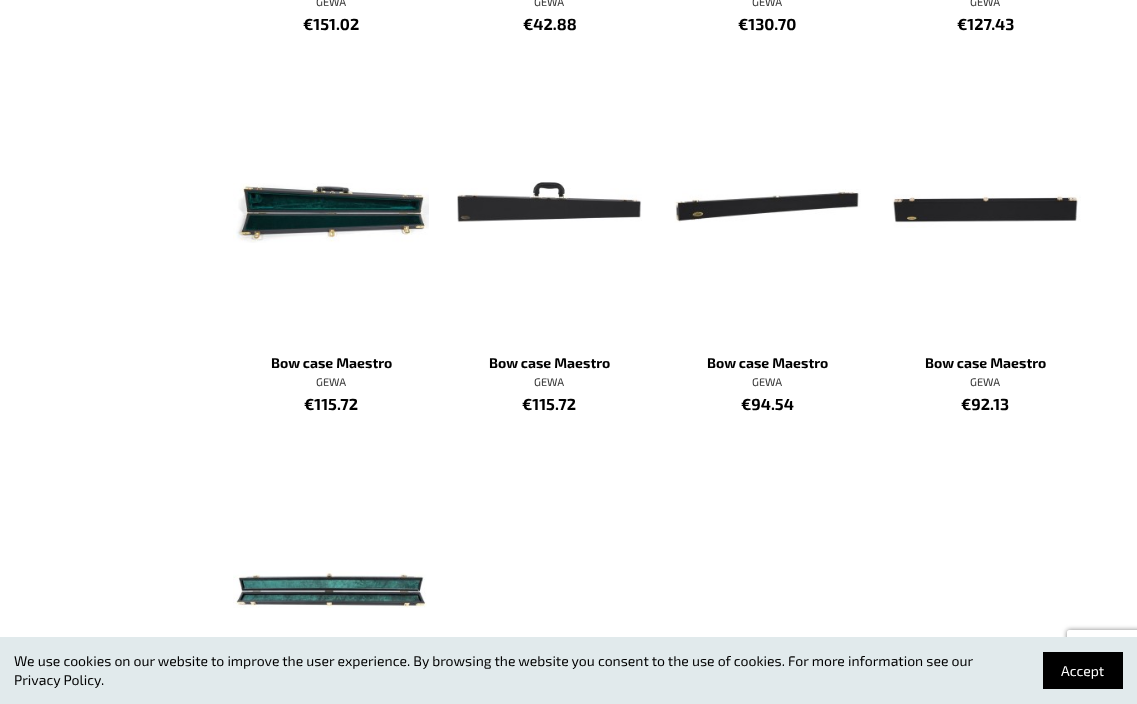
async function draw(canvas) {
	canvas.width = 1137;
	canvas.height = 704;
	const c = canvas.getContext('2d');
	c.miterLimit = 4;
	c.fontKerning = 'normal';
	async function loadImage(src) {
		const img = new Image();
		img.src = src;
		await img.decode();
		return img;
	}

	c.fillStyle = '#fff';
	c.fillRect(0, 0, 1137, 704);
	c.font = '11px "Exo 2"';
	c.fillStyle = '#333';
	c.fillText('GEWA', 316, 6);
	c.font = 'bold 16px "Exo 2"';
	c.fillStyle = '#000';
	c.fillText('€151.02', 303, 30);
	c.font = '11px "Exo 2"';
	c.fillStyle = '#333';
	c.fillText('GEWA', 534, 6);
	c.font = 'bold 16px "Exo 2"';
	c.fillStyle = '#000';
	c.fillText('€42.88', 523, 30);
	c.font = '11px "Exo 2"';
	c.fillStyle = '#333';
	c.fillText('GEWA', 752, 6);
	c.font = 'bold 16px "Exo 2"';
	c.fillStyle = '#000';
	c.fillText('€130.70', 738, 30);
	c.font = '11px "Exo 2"';
	c.fillStyle = '#333';
	c.fillText('GEWA', 970, 6);
	c.font = 'bold 16px "Exo 2"';
	c.fillStyle = '#000';
	c.fillText('€127.43', 957, 30);
	c.drawImage(await loadImage('img1.png'), 233, 183, 196, 60);
	c.font = 'bold 14px "Exo 2"';
	c.fillText('Bow case Maestro', 271, 368);
	c.font = '11px "Exo 2"';
	c.fillStyle = '#333';
	c.fillText('GEWA', 316, 386);
	c.font = 'bold 16px "Exo 2"';
	c.fillStyle = '#000';
	c.fillText('€115.72', 304, 410);
	c.drawImage(await loadImage('img2.png'), 457, 182, 185, 41);
	c.font = 'bold 14px "Exo 2"';
	c.fillText('Bow case Maestro', 489, 368);
	c.font = '11px "Exo 2"';
	c.fillStyle = '#333';
	c.fillText('GEWA', 534, 386);
	c.font = 'bold 16px "Exo 2"';
	c.fillStyle = '#000';
	c.fillText('€115.72', 522, 410);
	c.drawImage(await loadImage('img3.png'), 674, 189, 187, 34);
	c.font = 'bold 14px "Exo 2"';
	c.fillText('Bow case Maestro', 707, 368);
	c.font = '11px "Exo 2"';
	c.fillStyle = '#333';
	c.fillText('GEWA', 752, 386);
	c.font = 'bold 16px "Exo 2"';
	c.fillStyle = '#000';
	c.fillText('€94.54', 741, 410);
	c.drawImage(await loadImage('img4.png'), 892, 194, 189, 34);
	c.font = 'bold 14px "Exo 2"';
	c.fillText('Bow case Maestro', 925, 368);
	c.font = '11px "Exo 2"';
	c.fillStyle = '#333';
	c.fillText('GEWA', 970, 386);
	c.font = 'bold 16px "Exo 2"';
	c.fillStyle = '#000';
	c.fillText('€92.13', 961, 410);
	c.drawImage(await loadImage('img5.png'), 233, 570, 194, 38);
	c.save();
	c.beginPath();
	c.moveTo(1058, 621);
	c.lineTo(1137, 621);
	c.lineTo(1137, 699);
	c.lineTo(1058, 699);
	c.closePath();
	c.moveTo(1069, 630);
	c.lineTo(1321, 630);
	c.bezierCurveTo(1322, 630, 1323, 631, 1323, 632);
	c.lineTo(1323, 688);
	c.bezierCurveTo(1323, 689, 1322, 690, 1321, 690);
	c.lineTo(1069, 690);
	c.bezierCurveTo(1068, 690, 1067, 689, 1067, 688);
	c.lineTo(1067, 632);
	c.bezierCurveTo(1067, 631, 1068, 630, 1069, 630);
	c.closePath();
	c.clip('evenodd');
	c.fillStyle = '#808080';
	c.filter = 'blur(2.5px)';
	c.beginPath();
	c.roundRect(1067, 630, 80, 60, 2);
	c.fill();
	c.filter = 'none';
	c.restore();
	c.fillStyle = '#e1eaec';
	c.fillRect(0, 637, 1137, 67);
	c.font = '14px "Exo 2"';
	c.fillStyle = '#000';
	c.fillText('We use cookies on our website to improve the user experience. By browsing the website you consent to the use of cookies. For more information see our', 14, 666);
	c.fillText('Privacy Policy.', 14, 685);
	c.fillRect(1043, 652, 80, 37);
	c.fillStyle = '#fff';
	c.fillText('Accept', 1061, 676);
}

draw(document.querySelector('canvas'));
